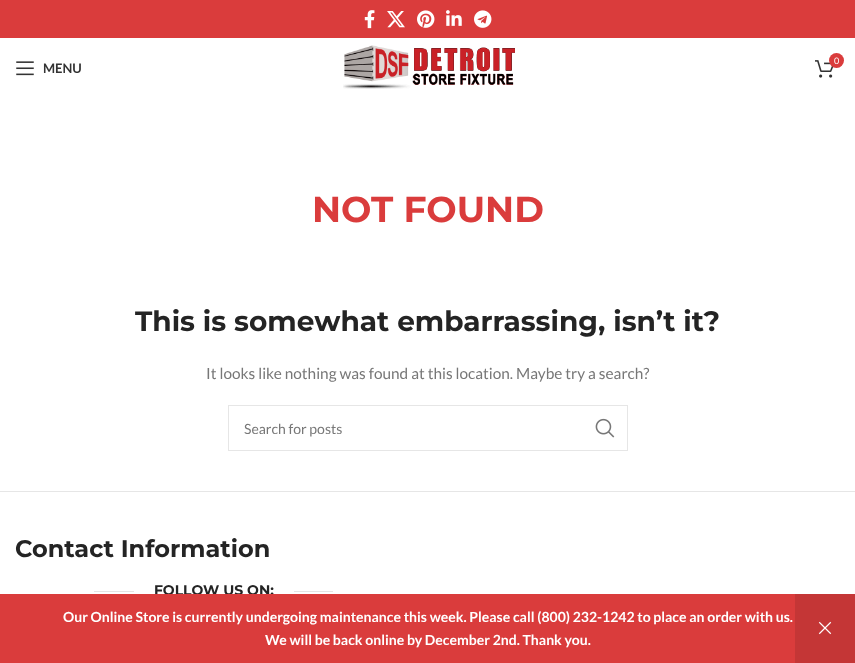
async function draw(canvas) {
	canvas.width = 855;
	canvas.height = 663;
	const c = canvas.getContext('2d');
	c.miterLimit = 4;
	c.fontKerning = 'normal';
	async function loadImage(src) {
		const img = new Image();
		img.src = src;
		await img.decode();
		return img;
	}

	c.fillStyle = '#fff';
	c.fillRect(0, 0, 855, 663);
	c.fillStyle = '#da3c3c';
	c.fillRect(0, 0, 855, 38);
	c.drawImage(await loadImage('img1.png'), 364, 10, 11, 19);
	c.drawImage(await loadImage('img2.png'), 387, 11, 18, 17);
	c.drawImage(await loadImage('img3.png'), 417, 10, 18, 18);
	c.drawImage(await loadImage('img4.png'), 446, 10, 16, 16);
	c.drawImage(await loadImage('img5.png'), 474, 10, 18, 18);
	c.drawImage(await loadImage('img6.png'), 343, 45, 172, 44);
	c.drawImage(await loadImage('img7.png'), 815, 60, 19, 18);
	c.beginPath();
	c.arc(836.5, 60.5, 7.5, 0, 2 * Math.PI);
	c.fill();
	c.font = '9px Lato';
	c.fillStyle = '#fff';
	c.fillText('0', 834, 64);
	c.drawImage(await loadImage('img8.png'), 16, 61, 18, 15);
	c.font = 'bold 13px Lato';
	c.fillStyle = '#333';
	c.fillText('MENU', 43, 73);
	c.font = 'bold 36px Montserrat';
	c.fillStyle = '#da3c3c';
	c.fillText('NOT FOUND', 312, 222);
	c.font = 'bold 28px Montserrat';
	c.fillStyle = '#242424';
	c.fillText('This is somewhat embarrassing, isn’t it?', 135, 331);
	c.font = '15.4px Lato';
	c.fillStyle = '#777';
	c.fillText('It looks like nothing was found at this location. Maybe try a search?', 206, 379);
	c.strokeStyle = '#e6e6e6';
	c.strokeRect(228.5, 405.5, 399, 45);
	c.font = '14px Lato';
	c.fillText('Search for posts', 244, 434);
	c.drawImage(await loadImage('img9.png'), 595, 418, 20, 20);
	c.fillStyle = '#e6e6e6';
	c.fillRect(0, 491, 855, 1);
	c.font = 'bold 24px Montserrat';
	c.fillStyle = '#242424';
	c.fillText('Contact Information', 15, 557);
	c.fillStyle = '#e4e4e4';
	c.fillRect(94, 591, 40, 1);
	c.font = 'bold 14px Montserrat';
	c.fillStyle = '#242424';
	c.fillText('FOLLOW US ON:', 154, 595);
	c.fillStyle = '#e4e4e4';
	c.fillRect(294, 591, 39, 1);
	c.fillStyle = '#da3c3c';
	c.fillRect(0, 594, 795, 69);
	c.font = 'bold 14px Lato';
	c.fillStyle = '#fff';
	c.fillText('Our Online Store is currently undergoing maintenance this week. Please call (800) 232-1242 to place an order with us.', 63, 622);
	c.fillStyle = '#c43636';
	c.fillRect(795, 594, 60, 69);
	c.drawImage(await loadImage('img10.png'), 818, 621, 14, 14);
	c.fillStyle = '#fff';
	c.fillText('We will be back online by December 2nd. Thank you.', 265, 645);
}

draw(document.querySelector('canvas'));
